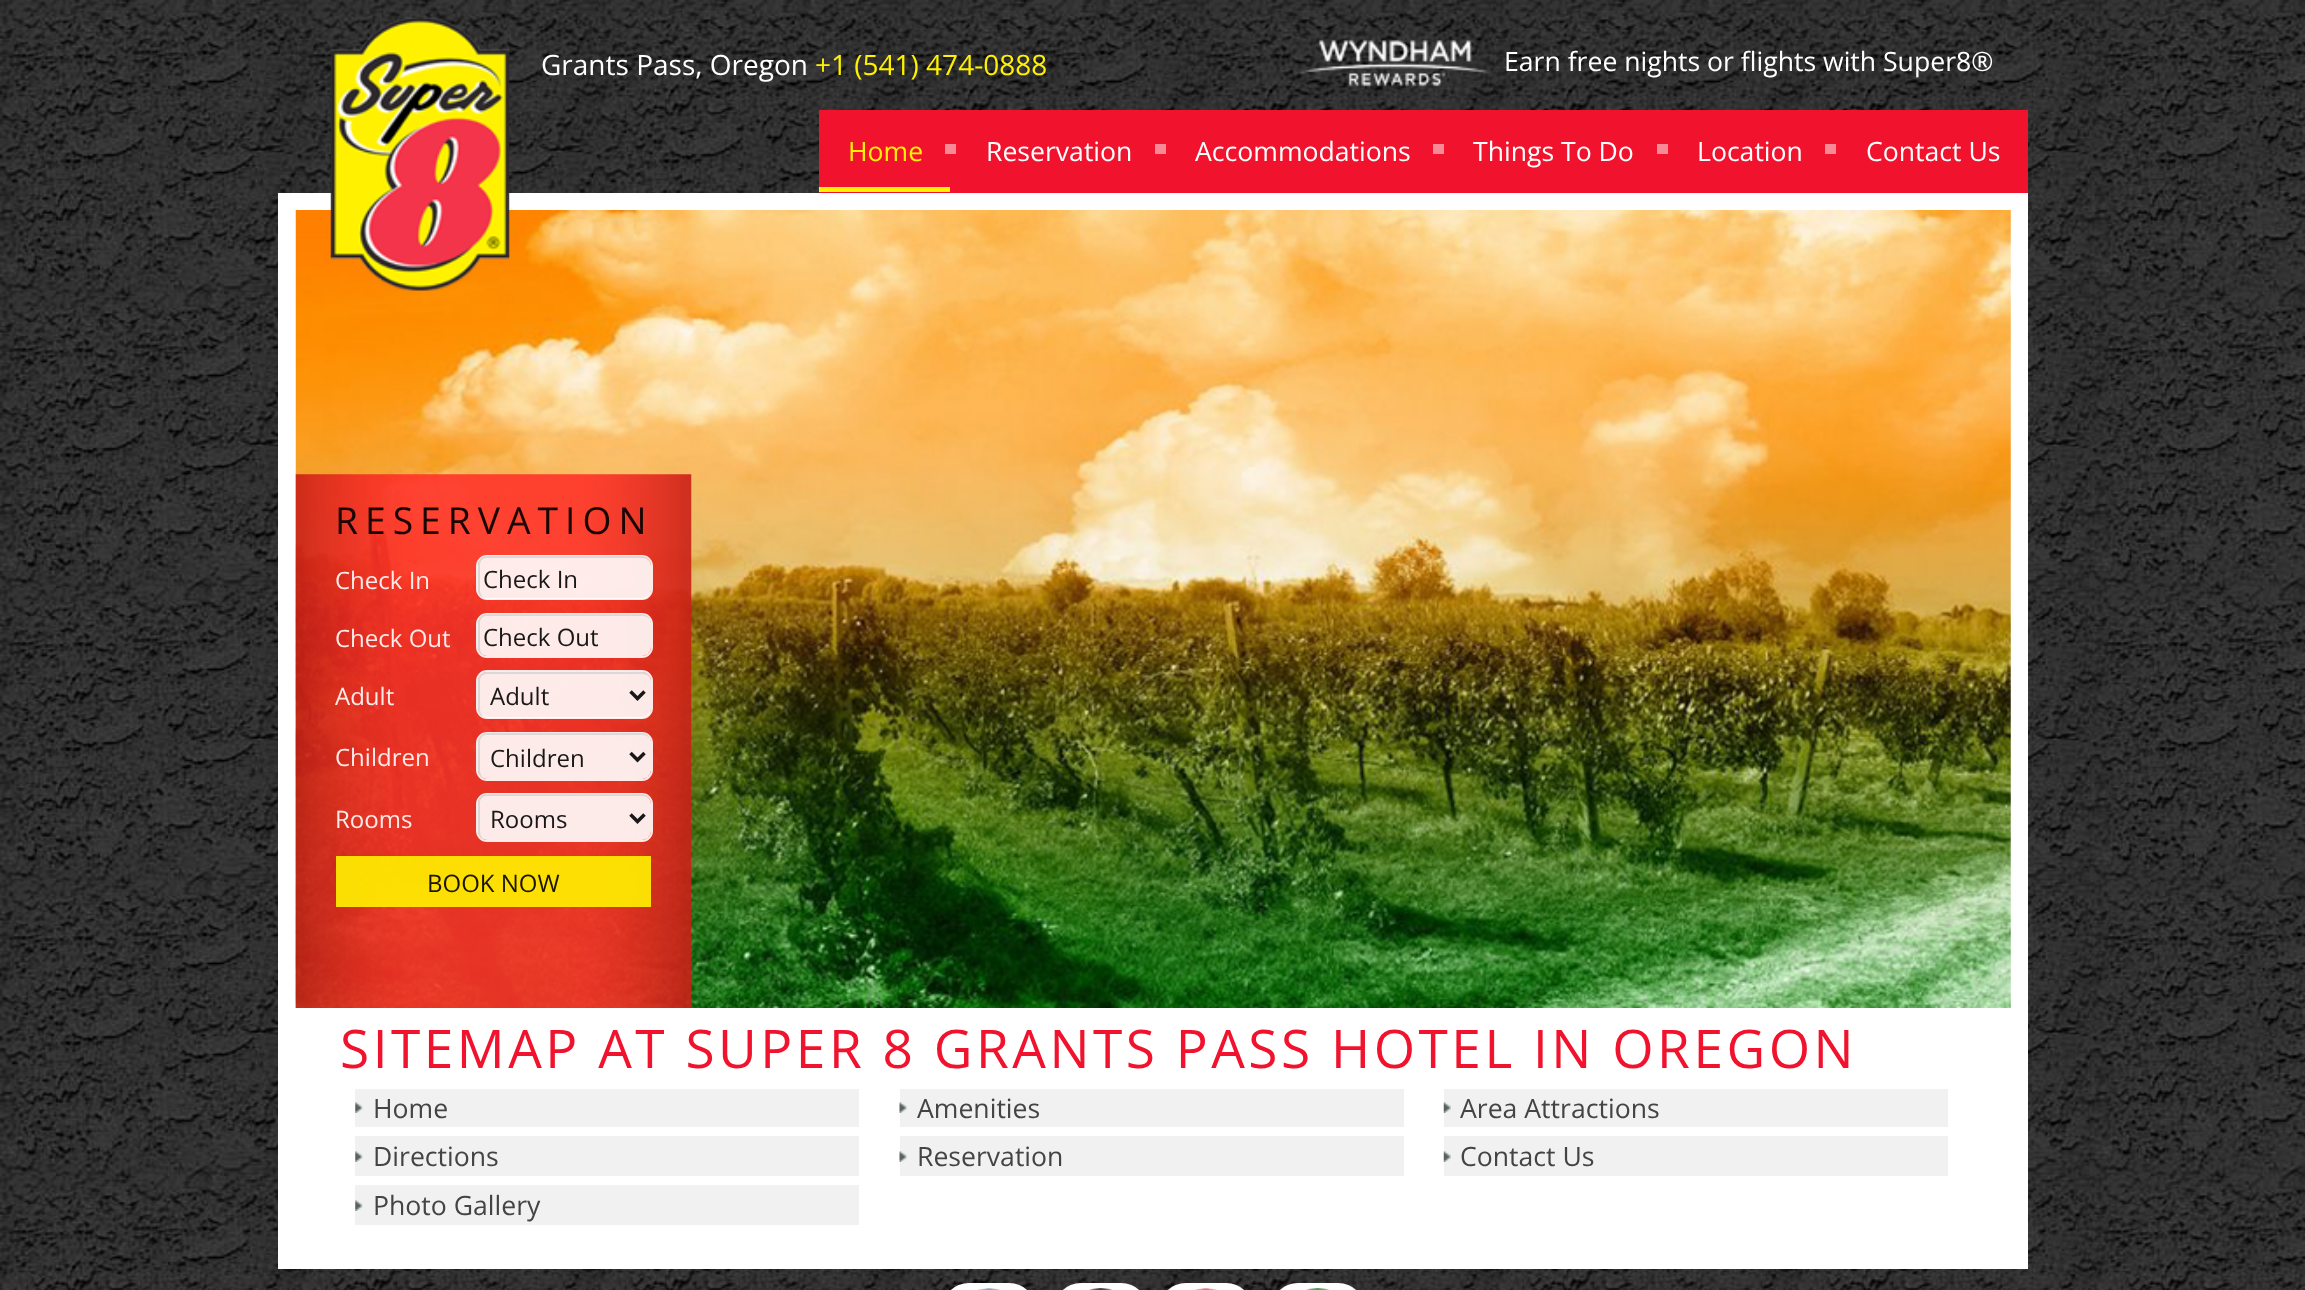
async function draw(canvas) {
	canvas.width = 2305;
	canvas.height = 1290;
	const c = canvas.getContext('2d');
	c.miterLimit = 4;
	c.fontKerning = 'normal';
	async function loadImage(src) {
		const img = new Image();
		img.src = src;
		await img.decode();
		return img;
	}

	c.fillStyle = '#fff';
	c.fillRect(0, 0, 2305, 1290);
	c.drawImage(await loadImage('img1.png'), 0, 0, 2305, 1290);
	c.strokeStyle = '#fff';
	c.lineWidth = 18;
	c.strokeRect(287, 202, 1732, 815);
	c.drawImage(await loadImage('img4.png'), 295, 210, 1716, 798);
	c.drawImage(await loadImage('img2.png'), 330, 17, 180, 274);
	c.font = '28px Open Sans';
	c.fillText('Grants Pass, Oregon', 541, 75);
	c.fillStyle = '#fff200';
	c.fillText('+1 (541) 474-0888', 815, 75);
	c.drawImage(await loadImage('img3.png'), 1300, 39, 191, 48);
	c.font = '26.6px Open Sans';
	c.fillStyle = '#fff';
	c.fillText('Earn free nights or flights with Super8®', 1504, 71);
	c.fillStyle = '#f1132d';
	c.fillRect(819, 110, 1209, 83);
	c.fillStyle = '#fff200';
	c.fillText('Home', 848, 161);
	c.fillStyle = '#f88996';
	c.fillRect(945, 144, 11, 10);
	c.fillStyle = '#fff200';
	c.fillRect(819, 187, 131, 5);
	c.fillStyle = '#fff';
	c.fillText('Reservation', 986, 161);
	c.fillStyle = '#f88996';
	c.fillRect(1155, 144, 11, 10);
	c.fillStyle = '#fff';
	c.fillText('Accommodations', 1195, 161);
	c.fillStyle = '#f88996';
	c.fillRect(1433, 144, 11, 10);
	c.fillStyle = '#fff';
	c.fillText('Things To Do', 1473, 161);
	c.fillStyle = '#f88996';
	c.fillRect(1657, 144, 11, 10);
	c.fillStyle = '#fff';
	c.fillText('Location', 1697, 161);
	c.fillStyle = '#f88996';
	c.fillRect(1825, 144, 11, 10);
	c.fillStyle = '#fff';
	c.fillText('Contact Us', 1866, 161);
	c.fillRect(278, 1026, 1750, 243);
	c.drawImage(await loadImage('img5.png'), 295, 474, 397, 534);
	c.letterSpacing = '7px';
	c.font = '37.25px Open Sans';
	c.fillStyle = '#190604';
	c.fillText('RESERVATION', 335, 534);
	c.letterSpacing = '0px';
	c.font = '24px Open Sans';
	c.fillStyle = '#fdebe9';
	c.fillText('Check In', 335, 589);
	c.beginPath();
	c.roundRect(477, 556, 175, 43, 10);
	c.strokeStyle = '#ffffffe6';
	c.lineWidth = 2;
	c.stroke();
	c.fillStyle = '#ffffffe6';
	c.beginPath();
	c.roundRect(478, 557, 173, 42, 9);
	c.fill();
	c.fillStyle = '#d6d6d6e6';
	c.beginPath();
	c.moveTo(486, 556);
	c.lineTo(642, 556);
	c.bezierCurveTo(647, 556, 651, 560, 651, 565);
	c.lineTo(651, 590);
	c.bezierCurveTo(651, 595, 647, 598, 642, 598);
	c.lineTo(486, 598);
	c.bezierCurveTo(482, 598, 478, 595, 478, 590);
	c.lineTo(478, 565);
	c.bezierCurveTo(478, 560, 482, 556, 486, 556);
	c.closePath();
	c.moveTo(486, 558);
	c.lineTo(642, 558);
	c.bezierCurveTo(647, 558, 651, 561, 651, 565);
	c.lineTo(651, 590);
	c.bezierCurveTo(651, 595, 647, 598, 642, 598);
	c.lineTo(486, 598);
	c.bezierCurveTo(483, 598, 480, 595, 480, 590);
	c.lineTo(480, 565);
	c.bezierCurveTo(480, 561, 483, 558, 486, 558);
	c.closePath();
	c.fill('evenodd');
	c.fillStyle = '#191817';
	c.fillText('Check In', 483, 588);
	c.fillStyle = '#fdebe9';
	c.fillText('Check Out', 335, 647);
	c.beginPath();
	c.roundRect(477, 614, 175, 43, 10);
	c.stroke();
	c.fillStyle = '#ffffffe6';
	c.beginPath();
	c.roundRect(478, 614, 173, 42, 9);
	c.fill();
	c.fillStyle = '#d6d6d6e6';
	c.beginPath();
	c.moveTo(486, 614);
	c.lineTo(642, 614);
	c.bezierCurveTo(647, 614, 651, 618, 651, 623);
	c.lineTo(651, 648);
	c.bezierCurveTo(651, 652, 647, 656, 642, 656);
	c.lineTo(486, 656);
	c.bezierCurveTo(482, 656, 478, 652, 478, 648);
	c.lineTo(478, 623);
	c.bezierCurveTo(478, 618, 482, 614, 486, 614);
	c.closePath();
	c.moveTo(486, 616);
	c.lineTo(642, 616);
	c.bezierCurveTo(647, 616, 651, 619, 651, 623);
	c.lineTo(651, 648);
	c.bezierCurveTo(651, 652, 647, 656, 642, 656);
	c.lineTo(486, 656);
	c.bezierCurveTo(483, 656, 480, 652, 480, 648);
	c.lineTo(480, 623);
	c.bezierCurveTo(480, 619, 483, 616, 486, 616);
	c.closePath();
	c.fill('evenodd');
	c.fillStyle = '#191817';
	c.fillText('Check Out', 483, 646);
	c.fillStyle = '#fdebe9';
	c.fillText('Adult', 335, 705);
	c.beginPath();
	c.roundRect(477, 671, 175, 47, 10);
	c.stroke();
	c.fillStyle = '#ffffffe6';
	c.beginPath();
	c.roundRect(478, 672, 173, 46, 9);
	c.fill();
	c.fillStyle = '#d6d6d6e6';
	c.beginPath();
	c.moveTo(486, 672);
	c.lineTo(642, 672);
	c.bezierCurveTo(647, 672, 651, 676, 651, 681);
	c.lineTo(651, 709);
	c.bezierCurveTo(651, 714, 647, 718, 642, 718);
	c.lineTo(486, 718);
	c.bezierCurveTo(482, 718, 478, 714, 478, 709);
	c.lineTo(478, 681);
	c.bezierCurveTo(478, 676, 482, 672, 486, 672);
	c.closePath();
	c.moveTo(486, 674);
	c.lineTo(642, 674);
	c.bezierCurveTo(647, 674, 651, 677, 651, 681);
	c.lineTo(651, 709);
	c.bezierCurveTo(651, 714, 647, 718, 642, 718);
	c.lineTo(486, 718);
	c.bezierCurveTo(483, 718, 480, 714, 480, 709);
	c.lineTo(480, 681);
	c.bezierCurveTo(480, 677, 483, 674, 486, 674);
	c.closePath();
	c.fill('evenodd');
	c.beginPath();
	c.moveTo(630.5, 691.5);
	c.lineTo(637.5, 698.5);
	c.lineTo(644.5, 691.5);
	c.strokeStyle = '#191717';
	c.lineWidth = 3.5;
	c.stroke();
	c.fillStyle = '#191817';
	c.fillText('Adult', 490, 705);
	c.fillStyle = '#fdebe9';
	c.fillText('Children', 335, 766);
	c.beginPath();
	c.roundRect(477, 733, 175, 47, 10);
	c.strokeStyle = '#ffffffe6';
	c.lineWidth = 2;
	c.stroke();
	c.fillStyle = '#ffffffe6';
	c.beginPath();
	c.roundRect(478, 733, 173, 46, 9);
	c.fill();
	c.fillStyle = '#d6d6d6e6';
	c.beginPath();
	c.moveTo(486, 733);
	c.lineTo(642, 733);
	c.bezierCurveTo(647, 733, 651, 737, 651, 742);
	c.lineTo(651, 770);
	c.bezierCurveTo(651, 775, 647, 779, 642, 779);
	c.lineTo(486, 779);
	c.bezierCurveTo(482, 779, 478, 775, 478, 770);
	c.lineTo(478, 742);
	c.bezierCurveTo(478, 737, 482, 733, 486, 733);
	c.closePath();
	c.moveTo(486, 735);
	c.lineTo(642, 735);
	c.bezierCurveTo(647, 735, 651, 738, 651, 742);
	c.lineTo(651, 770);
	c.bezierCurveTo(651, 775, 647, 779, 642, 779);
	c.lineTo(486, 779);
	c.bezierCurveTo(483, 779, 480, 775, 480, 770);
	c.lineTo(480, 742);
	c.bezierCurveTo(480, 738, 483, 735, 486, 735);
	c.closePath();
	c.fill('evenodd');
	c.beginPath();
	c.moveTo(630.5, 753);
	c.lineTo(637.5, 760);
	c.lineTo(644.5, 753);
	c.strokeStyle = '#191717';
	c.lineWidth = 3.5;
	c.stroke();
	c.fillStyle = '#191817';
	c.fillText('Children', 490, 767);
	c.fillStyle = '#fdebe9';
	c.fillText('Rooms', 335, 828);
	c.beginPath();
	c.roundRect(477, 794, 175, 47, 10);
	c.strokeStyle = '#ffffffe6';
	c.lineWidth = 2;
	c.stroke();
	c.fillStyle = '#ffffffe6';
	c.beginPath();
	c.roundRect(478, 795, 173, 45, 9);
	c.fill();
	c.fillStyle = '#d6d6d6e6';
	c.beginPath();
	c.moveTo(486, 794);
	c.lineTo(642, 794);
	c.bezierCurveTo(647, 794, 651, 798, 651, 803);
	c.lineTo(651, 831);
	c.bezierCurveTo(651, 836, 647, 840, 642, 840);
	c.lineTo(486, 840);
	c.bezierCurveTo(482, 840, 478, 836, 478, 831);
	c.lineTo(478, 803);
	c.bezierCurveTo(478, 798, 482, 794, 486, 794);
	c.closePath();
	c.moveTo(486, 796);
	c.lineTo(642, 796);
	c.bezierCurveTo(647, 796, 651, 799, 651, 803);
	c.lineTo(651, 831);
	c.bezierCurveTo(651, 836, 647, 840, 642, 840);
	c.lineTo(486, 840);
	c.bezierCurveTo(483, 840, 480, 836, 480, 831);
	c.lineTo(480, 803);
	c.bezierCurveTo(480, 799, 483, 796, 486, 796);
	c.closePath();
	c.fill('evenodd');
	c.beginPath();
	c.moveTo(630.5, 814.5);
	c.lineTo(637.5, 821.5);
	c.lineTo(644.5, 814.5);
	c.strokeStyle = '#191717';
	c.lineWidth = 3.5;
	c.stroke();
	c.fillStyle = '#191817';
	c.fillText('Rooms', 490, 828);
	c.fillStyle = '#fff200e6';
	c.fillRect(336, 856, 315, 51);
	c.fillStyle = '#191600';
	c.fillText('BOOK NOW', 427, 892);
	c.letterSpacing = '3.5px';
	c.font = '53.2px Open Sans';
	c.fillStyle = '#f1132d';
	c.fillText('SITEMAP AT SUPER 8 GRANTS PASS HOTEL IN OREGON', 340, 1068);
	c.fillStyle = '#f1f1f1';
	c.fillRect(355, 1089, 504, 38);
	c.drawImage(await loadImage('img6.png'), 355, 1102, 8, 11);
	c.letterSpacing = '0px';
	c.font = '26.6px Open Sans';
	c.fillStyle = '#444';
	c.fillText('Home', 373, 1118);
	c.fillStyle = '#f1f1f1';
	c.fillRect(900, 1089, 504, 38);
	c.drawImage(await loadImage('img7.png'), 899, 1102, 8, 11);
	c.fillStyle = '#444';
	c.fillText('Amenities', 917, 1118);
	c.fillStyle = '#f1f1f1';
	c.fillRect(1444, 1089, 504, 38);
	c.drawImage(await loadImage('img8.png'), 1443, 1102, 8, 11);
	c.fillStyle = '#444';
	c.fillText('Area Attractions', 1460, 1118);
	c.fillStyle = '#f1f1f1';
	c.fillRect(355, 1136, 504, 40);
	c.drawImage(await loadImage('img6.png'), 355, 1151, 8, 11);
	c.fillStyle = '#444';
	c.fillText('Directions', 373, 1166);
	c.fillStyle = '#f1f1f1';
	c.fillRect(900, 1136, 504, 40);
	c.drawImage(await loadImage('img7.png'), 899, 1151, 8, 11);
	c.fillStyle = '#444';
	c.fillText('Reservation', 917, 1166);
	c.fillStyle = '#f1f1f1';
	c.fillRect(1444, 1136, 504, 40);
	c.drawImage(await loadImage('img8.png'), 1443, 1151, 8, 11);
	c.fillStyle = '#444';
	c.fillText('Contact Us', 1460, 1166);
	c.fillStyle = '#f1f1f1';
	c.fillRect(355, 1185, 504, 40);
	c.drawImage(await loadImage('img6.png'), 355, 1200, 8, 11);
	c.fillStyle = '#444';
	c.fillText('Photo Gallery', 373, 1215);
	c.fillStyle = '#fff';
	c.beginPath();
	c.roundRect(942, 1283, 94, 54, 47);
	c.fill();
	c.beginPath();
	c.roundRect(1054, 1283, 94, 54, 47);
	c.fill();
	c.beginPath();
	c.roundRect(1159, 1283, 94, 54, 47);
	c.fill();
	c.beginPath();
	c.roundRect(1271, 1283, 94, 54, 47);
	c.fill();
	c.drawImage(await loadImage('img9.png'), 977, 1288, 23, 2);
	c.drawImage(await loadImage('img10.png'), 1089, 1288, 24, 2);
	c.drawImage(await loadImage('img11.png'), 1194, 1288, 23, 2);
	c.drawImage(await loadImage('img12.png'), 1306, 1288, 24, 2);
}

draw(document.querySelector('canvas'));
